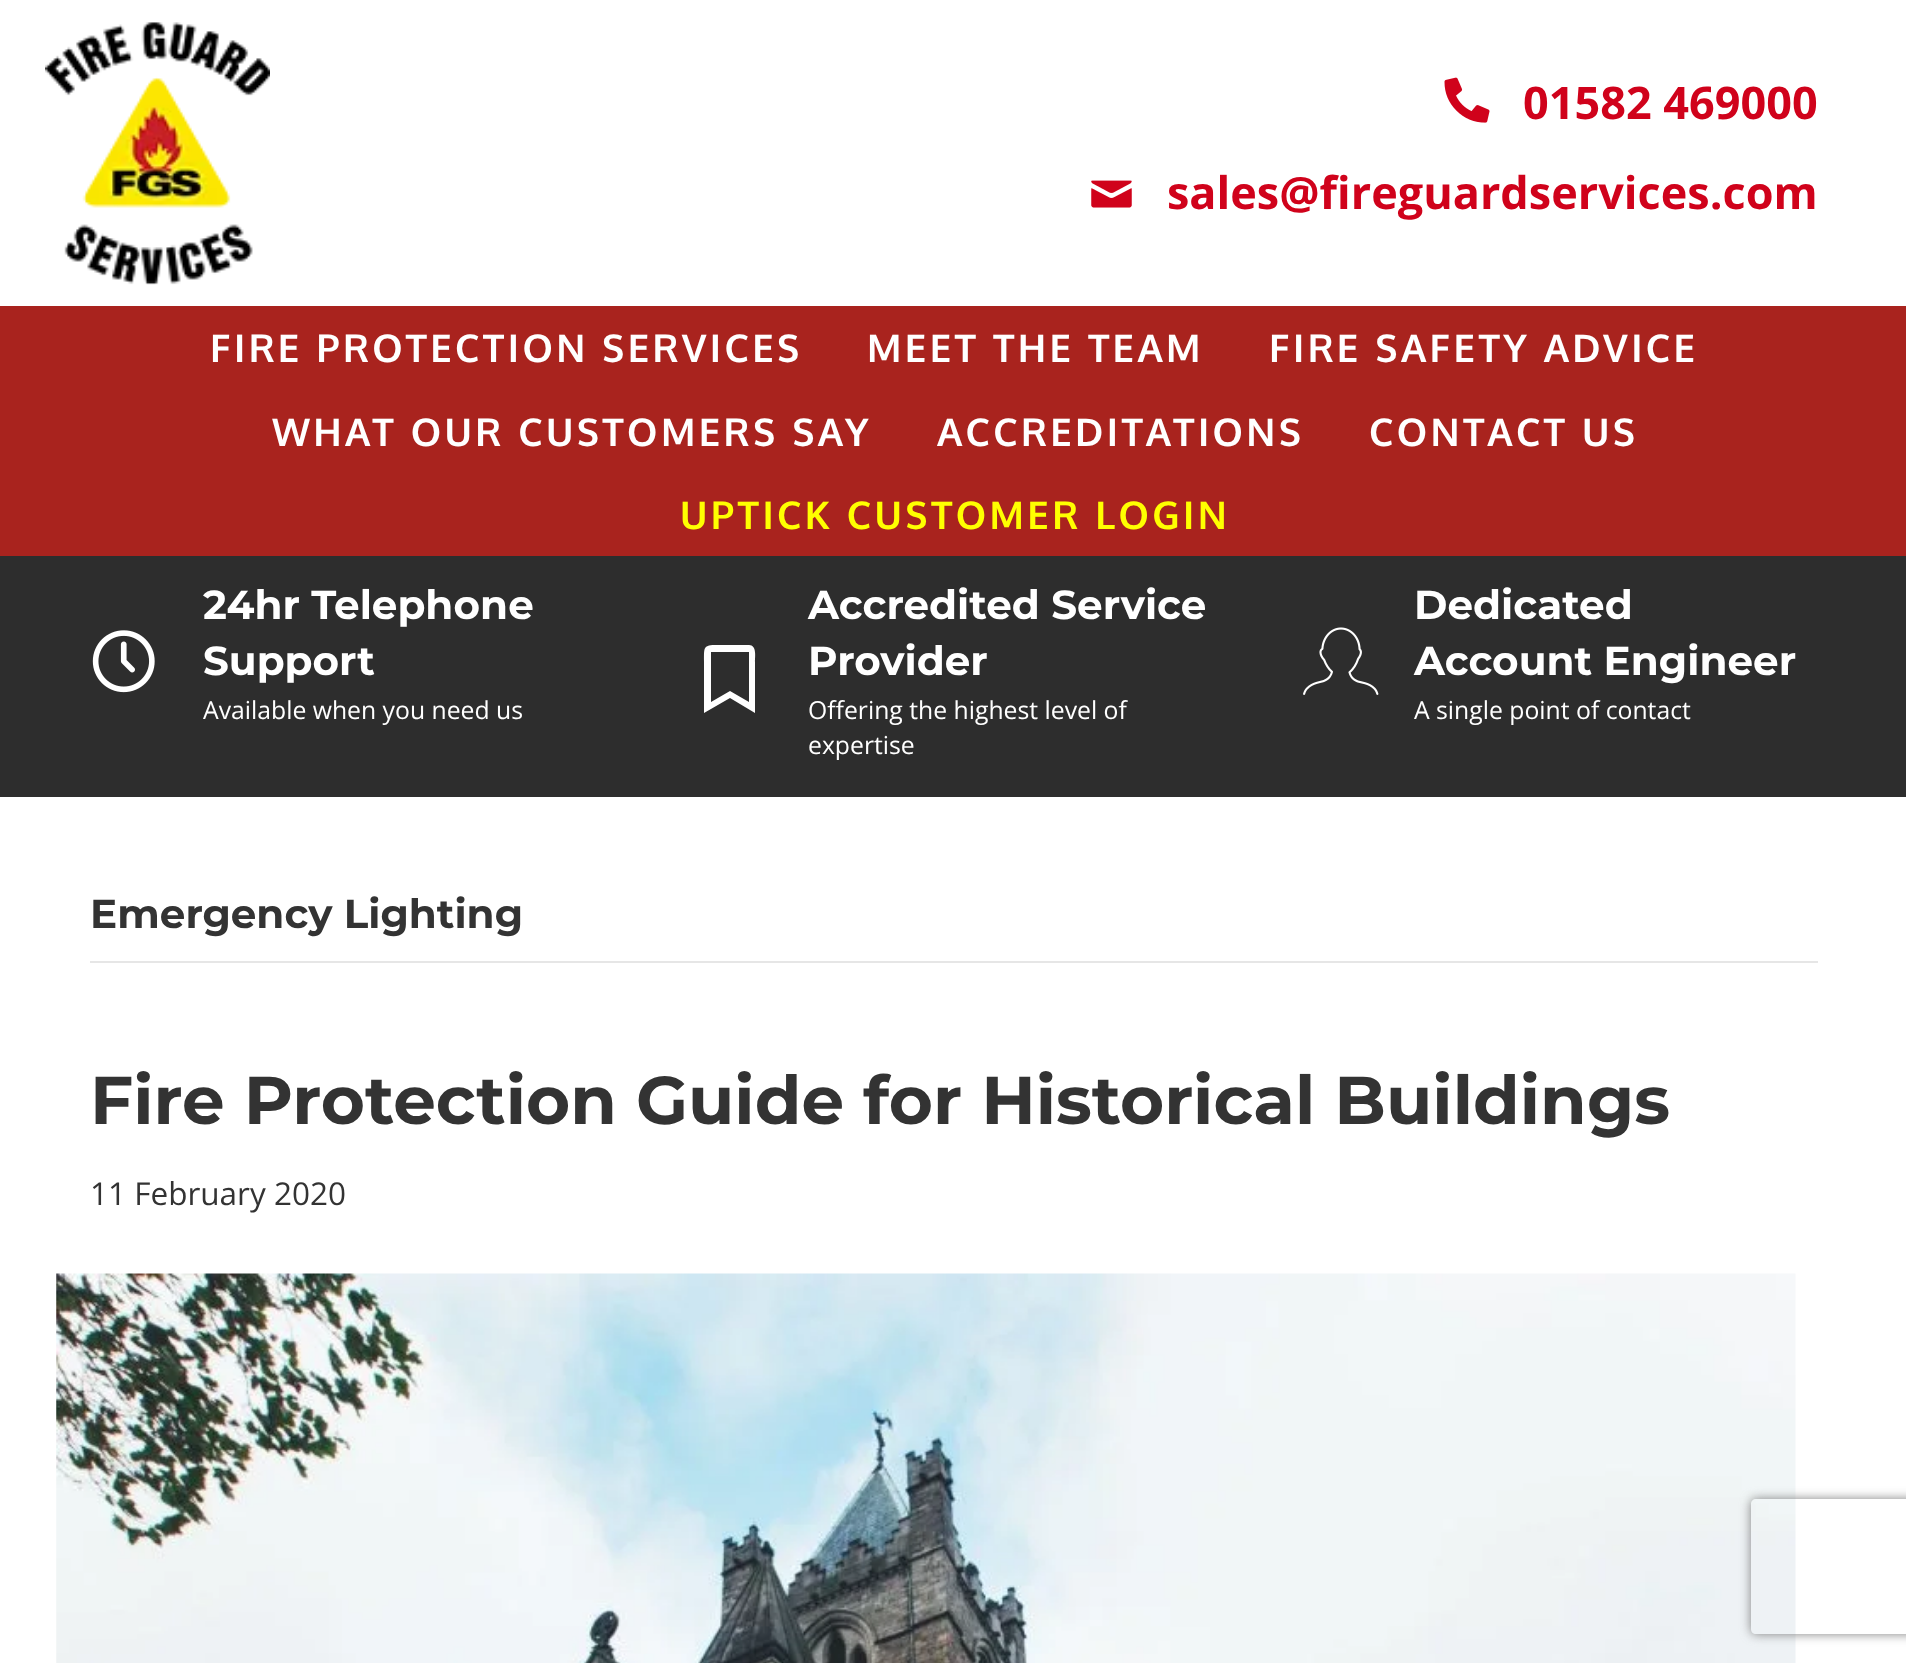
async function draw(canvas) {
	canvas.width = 1906;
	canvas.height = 1663;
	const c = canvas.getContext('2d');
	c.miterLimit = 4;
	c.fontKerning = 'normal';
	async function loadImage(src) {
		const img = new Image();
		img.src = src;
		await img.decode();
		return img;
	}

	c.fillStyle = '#fff';
	c.fillRect(0, 0, 1906, 1663);
	c.drawImage(await loadImage('img1.png'), 45, 22, 225, 263);
	c.drawImage(await loadImage('img2.png'), 1444, 77, 46, 46);
	c.font = 'bold 45px Open Sans';
	c.fillStyle = '#d0021b';
	c.fillText('01582 469000', 1523, 119);
	c.drawImage(await loadImage('img3.png'), 1091, 180, 41, 28);
	c.fillText('sales@fireguardservices.com', 1167, 209);
	c.fillStyle = '#a9231e';
	c.fillRect(0, 306, 1906, 250);
	c.letterSpacing = '3.4px';
	c.font = 'bold 38.25px Oxygen';
	c.fillStyle = '#fff';
	for (const [text, x, y] of [
		['FIRE PROTECTION SERVICES', 210, 362],
		['MEET THE TEAM', 867, 362],
		['FIRE SAFETY ADVICE', 1269, 362],
		['WHAT OUR CUSTOMERS SAY', 272, 446],
		['ACCREDITATIONS', 937, 446],
		['CONTACT US', 1369, 446],
	]) {
		c.fillText(text, x, y);
	}
	c.fillStyle = '#ff0';
	c.fillText('UPTICK CUSTOMER LOGIN', 680, 529);
	c.fillStyle = '#2d2d2d';
	c.fillRect(0, 556, 1906, 241);
	c.drawImage(await loadImage('img4.png'), 92, 630, 63, 63);
	c.letterSpacing = '0px';
	c.font = 'bold 40.5px Montserrat';
	c.fillStyle = '#fff';
	c.fillText('24hr Telephone', 203, 619);
	c.fillText('Support', 203, 675);
	c.font = '24.75px Open Sans';
	c.fillText('Available when you need us', 203, 719);
	c.beginPath();
	c.moveTo(749, 645);
	c.bezierCurveTo(757, 645, 755, 657, 755, 662);
	c.lineTo(755, 713);
	c.lineTo(730, 698);
	c.lineTo(704, 713);
	c.lineTo(704, 662);
	c.bezierCurveTo(704, 647, 703, 645, 717, 645);
	c.closePath();
	c.moveTo(749, 702);
	c.lineTo(749, 652);
	c.bezierCurveTo(749, 652, 748, 652, 748, 652);
	c.lineTo(711, 652);
	c.lineTo(711, 702);
	c.lineTo(730, 691);
	c.closePath();
	c.fill();
	c.font = 'bold 40.5px Montserrat';
	c.fillText('Accredited Service', 808, 619);
	c.fillText('Provider', 808, 675);
	c.font = '24.75px Open Sans';
	c.fillText('Offering the highest level of', 808, 719);
	c.fillText('expertise', 808, 754);
	c.drawImage(await loadImage('img5.png'), 1303, 627, 76, 68);
	c.font = 'bold 40.5px Montserrat';
	c.fillText('Dedicated', 1414, 619);
	c.fillText('Account Engineer', 1414, 675);
	c.font = '24.75px Open Sans';
	c.fillText('A single point of contact', 1414, 719);
	c.fillStyle = '#e6e6e6';
	c.fillRect(90, 961, 1728, 2);
	c.font = 'bold 40.5px Montserrat';
	c.fillStyle = '#333';
	c.fillText('Emergency Lighting', 90, 928);
	c.font = 'bold 67.5px Montserrat';
	c.fillText('Fire Protection Guide for Historical Buildings', 90, 1124);
	c.font = '31.5px Open Sans';
	c.fillText('11 February 2020', 90, 1205);
	c.drawImage(await loadImage('img6.png'), 56, 1273, 1740, 390);
	c.save();
	c.beginPath();
	c.moveTo(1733, 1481);
	c.lineTo(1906, 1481);
	c.lineTo(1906, 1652);
	c.lineTo(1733, 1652);
	c.closePath();
	c.moveTo(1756, 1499);
	c.lineTo(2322, 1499);
	c.bezierCurveTo(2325, 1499, 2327, 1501, 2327, 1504);
	c.lineTo(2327, 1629);
	c.bezierCurveTo(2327, 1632, 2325, 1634, 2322, 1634);
	c.lineTo(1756, 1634);
	c.bezierCurveTo(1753, 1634, 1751, 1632, 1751, 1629);
	c.lineTo(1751, 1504);
	c.bezierCurveTo(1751, 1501, 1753, 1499, 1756, 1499);
	c.closePath();
	c.clip('evenodd');
	c.fillStyle = '#808080';
	c.filter = 'blur(5.5px)';
	c.beginPath();
	c.roundRect(1751, 1499, 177, 135, 5);
	c.fill();
	c.filter = 'none';
	c.restore();
}

draw(document.querySelector('canvas'));
